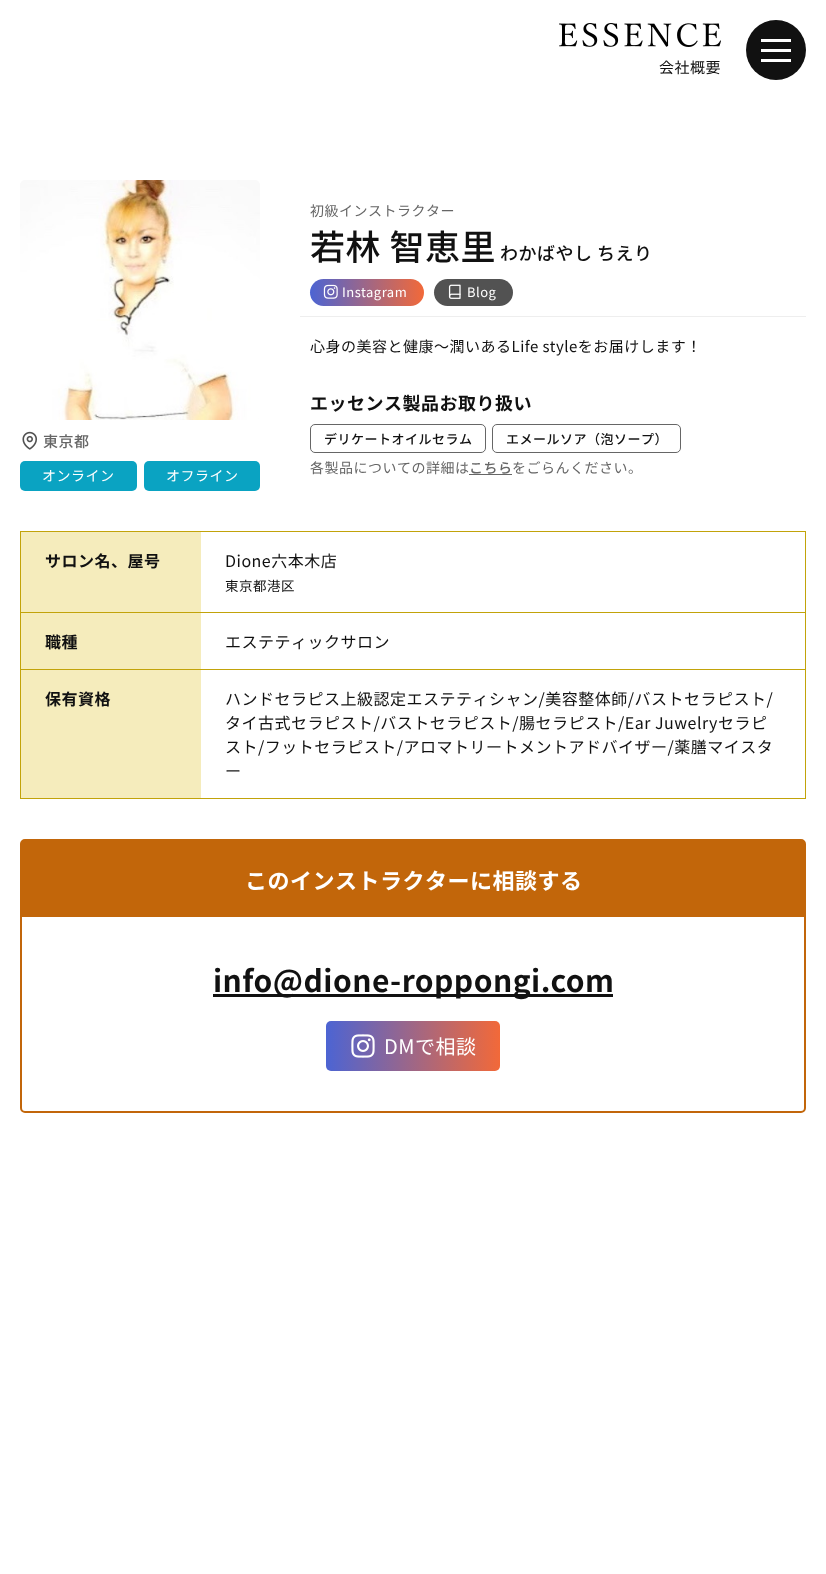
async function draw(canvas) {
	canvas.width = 826;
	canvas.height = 1574;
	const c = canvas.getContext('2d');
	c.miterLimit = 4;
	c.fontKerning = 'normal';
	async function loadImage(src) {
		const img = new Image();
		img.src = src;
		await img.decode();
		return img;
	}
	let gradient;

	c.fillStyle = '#fff';
	c.fillRect(0, 0, 826, 1574);
	c.drawImage(await loadImage('img1.png'), 559, 23, 162, 24);
	c.letterSpacing = '0.5px';
	c.font = '15px Noto Sans JP';
	c.fillStyle = '#111';
	c.fillText('会社概要', 659, 73);
	c.beginPath();
	c.arc(776, 50, 30, 0, 2 * Math.PI);
	c.fill();
	for (const [x, y, w, h, color] of [
		[761, 49, 30, 3, '#fff'],
		[761, 39, 30, 3, '#fff'],
		[761, 59, 30, 3, '#fff'],
	]) {
		c.fillStyle = color;
		c.fillRect(x, y, w, h);
	}
	c.drawImage(await loadImage('img2.png'), 20, 180, 240, 240);
	c.drawImage(await loadImage('img3.png'), 22, 431, 16, 19);
	c.font = '500 15px Noto Sans JP';
	c.fillStyle = '#666';
	c.fillText('東京都', 43, 447);
	c.fillStyle = '#0aa3c2';
	c.beginPath();
	c.roundRect(20, 461, 117, 30, 5);
	c.fill();
	c.font = '14px Noto Sans JP';
	c.fillStyle = '#fff';
	c.fillText('オンライン', 42, 481);
	c.fillStyle = '#0aa3c2';
	c.beginPath();
	c.roundRect(144, 461, 116, 30, 5);
	c.fill();
	c.fillStyle = '#fff';
	c.fillText('オフライン', 166, 481);
	c.fillStyle = '#eee';
	c.fillRect(300, 316, 506, 1);
	c.fillStyle = '#666';
	c.fillText('初級インストラクター', 310, 216);
	c.font = '500 35px Noto Sans JP';
	c.fillStyle = '#111';
	c.fillText('若林 智恵里', 310, 260);
	c.font = '500 18px Noto Sans JP';
	c.fillText('わかばやし ちえり', 500, 260);
	gradient = c.createLinearGradient(310, 293, 424, 293);
	gradient.addColorStop(0, '#4c64d3');
	gradient.addColorStop(1, '#f26939');
	c.fillStyle = gradient;
	c.beginPath();
	c.roundRect(310, 279, 114, 27, 13.5);
	c.fill();
	c.drawImage(await loadImage('img4.png'), 323, 284, 15, 15);
	c.font = '13px Noto Sans JP';
	c.fillStyle = '#fff';
	c.fillText('Instagram', 342, 297);
	c.fillStyle = '#525252';
	c.beginPath();
	c.roundRect(434, 279, 79, 27, 13.5);
	c.fill();
	c.drawImage(await loadImage('img5.png'), 448, 284, 13, 15);
	c.fillStyle = '#fff';
	c.fillText('Blog', 467, 297);
	c.font = '15px Noto Sans JP';
	c.fillStyle = '#111';
	c.fillText('心身の美容と健康〜潤いあるLife styleをお届けします！', 310, 352);
	c.font = 'bold 18px Noto Sans JP';
	c.fillText('エッセンス製品お取り扱い', 310, 410);
	c.beginPath();
	c.roundRect(310.5, 424.5, 175, 28, 4.5);
	c.strokeStyle = '#666';
	c.stroke();
	c.font = '500 13px Noto Sans JP';
	c.fillText('デリケートオイルセラム', 324, 444);
	c.beginPath();
	c.roundRect(492.5, 424.5, 188, 28, 4.5);
	c.stroke();
	c.fillText('エメールソア（泡ソープ）', 506, 444);
	c.font = '14px Noto Sans JP';
	c.fillStyle = '#666';
	c.fillText('各製品についての詳細は', 310, 473);
	c.font = '500 14px Noto Sans JP';
	c.fillText('こちら', 469, 473);
	c.fillRect(469, 474, 43, 1);
	c.font = '14px Noto Sans JP';
	c.fillText('をごらんください。', 512, 473);
	for (const [x, y, w, h, color] of [
		[20, 531, 786, 1, '#c2a30a'],
		[805, 531, 1, 268, '#c2a30a'],
		[20, 798, 786, 1, '#c2a30a'],
		[20, 531, 1, 268, '#c2a30a'],
		[20, 612, 786, 1, '#c2a30a'],
		[21, 532, 180, 80, '#f5ecbc'],
	]) {
		c.fillStyle = color;
		c.fillRect(x, y, w, h);
	}
	c.font = 'bold 16px Noto Sans JP';
	c.fillStyle = '#111';
	c.fillText('サロン名、屋号', 45, 567);
	c.font = '16px Noto Sans JP';
	c.fillText('Dione六本木店', 225, 567);
	c.font = '13.5px Noto Sans JP';
	c.fillText('東京都港区', 225, 591);
	c.fillStyle = '#c2a30a';
	c.fillRect(20, 669, 786, 1);
	c.fillStyle = '#f5ecbc';
	c.fillRect(21, 613, 180, 56);
	c.font = 'bold 16px Noto Sans JP';
	c.fillStyle = '#111';
	c.fillText('職種', 45, 648);
	c.font = '16px Noto Sans JP';
	c.fillText('エステティックサロン', 225, 648);
	c.fillStyle = '#f5ecbc';
	c.fillRect(21, 670, 180, 128);
	c.font = 'bold 16px Noto Sans JP';
	c.fillStyle = '#111';
	c.fillText('保有資格', 45, 705);
	c.font = '16px Noto Sans JP';
	for (const [text, x, y] of [
		['ハンドセラピス上級認定エステティシャン/美容整体師/バストセラピスト/', 225, 705],
		['タイ古式セラピスト/バストセラピスト/腸セラピスト/Ear Juwelryセラピ', 225, 729],
		['スト/フットセラピスト/アロマトリートメントアドバイザー/薬膳マイスタ', 225, 753],
		['ー', 225, 777],
	]) {
		c.fillText(text, x, y);
	}
	c.beginPath();
	c.roundRect(21, 840, 784, 272, 4);
	c.strokeStyle = '#c2660a';
	c.lineWidth = 2;
	c.stroke();
	c.fillStyle = '#c2660a';
	c.fillRect(22, 841, 782, 76);
	c.font = 'bold 22px Noto Sans JP';
	c.fillStyle = '#fff';
	c.fillText('このインストラクターに相談する', 245, 889);
	c.fillStyle = '#111';
	c.fillRect(213, 994, 400, 3);
	c.font = 'bold 30px Noto Sans JP';
	c.fillText('info@dione-roppongi.com', 213, 992);
	gradient = c.createLinearGradient(326, 1046, 500, 1046);
	gradient.addColorStop(0, '#4c64d3');
	gradient.addColorStop(1, '#f26939');
	c.fillStyle = gradient;
	c.beginPath();
	c.roundRect(326, 1021, 174, 50, 5);
	c.fill();
	c.drawImage(await loadImage('img6.png'), 351, 1034, 24, 24);
	c.font = '20px Noto Sans JP';
	c.fillStyle = '#fff';
	c.fillText('DMで相談', 384, 1054);
}

draw(document.querySelector('canvas'));
